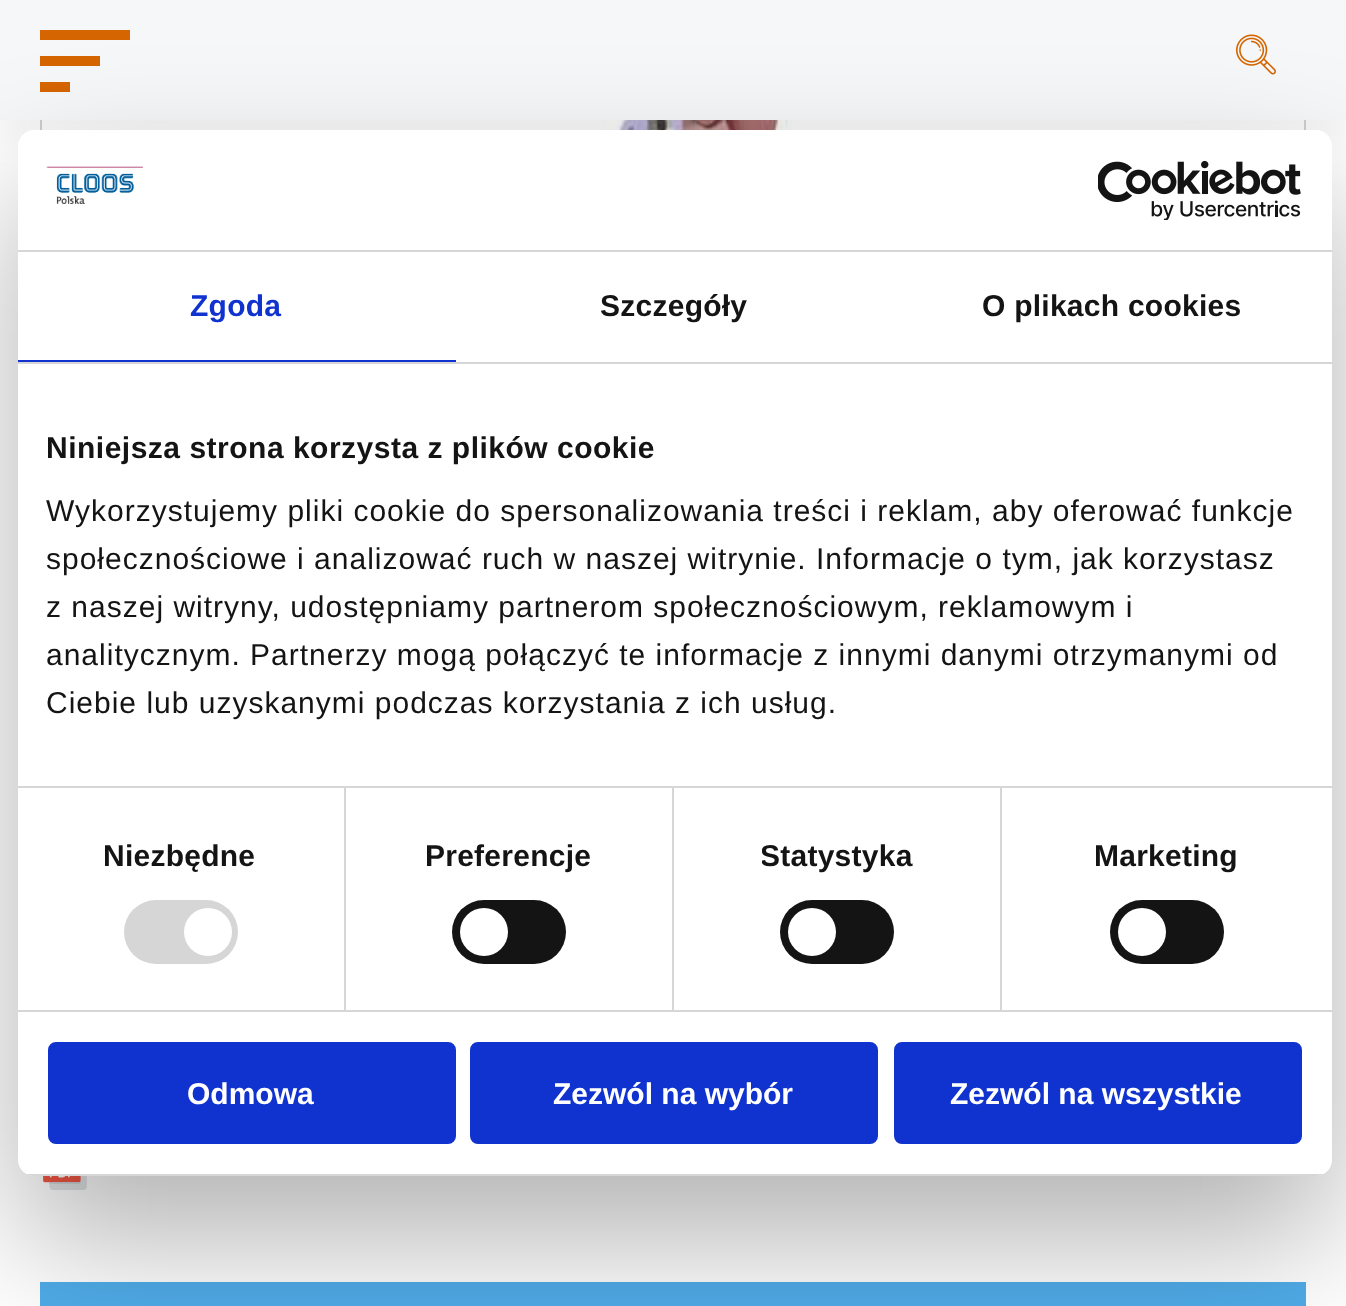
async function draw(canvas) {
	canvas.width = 1346;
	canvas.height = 1306;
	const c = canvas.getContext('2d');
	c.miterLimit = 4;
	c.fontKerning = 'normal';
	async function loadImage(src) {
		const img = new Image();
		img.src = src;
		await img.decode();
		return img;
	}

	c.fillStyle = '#fff';
	c.fillRect(0, 0, 1346, 1306);
	c.strokeStyle = '#d2d2d2';
	c.lineWidth = 2;
	c.strokeRect(41, -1, 1264, 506);
	c.drawImage(await loadImage('img1.png'), 475, 120, 349, 10);
	c.drawImage(await loadImage('img2.png'), 43, 1176, 44, 14);
	c.fillStyle = '#51adea';
	c.fillRect(40, 1282, 1266, 24);
	c.fillStyle = '#9090901a';
	c.filter = 'blur(15px)';
	c.beginPath();
	c.rect(0, 20, 1346, 120);
	c.fill();
	c.filter = 'none';
	for (const [x, y, w, h, color] of [
		[0, 0, 1346, 120, '#f5f7f9'],
		[40, 56, 60, 10, '#d56500'],
		[40, 30, 90, 10, '#d56500'],
		[40, 82, 30, 10, '#d56500'],
	]) {
		c.fillStyle = color;
		c.fillRect(x, y, w, h);
	}
	c.drawImage(await loadImage('img3.png'), 1236, 34, 40, 41);
	c.fillStyle = '#0000004d';
	c.filter = 'blur(68px)';
	c.beginPath();
	c.roundRect(18, 194, 1314, 1046, 16);
	c.fill();
	c.filter = 'none';
	c.fillStyle = '#fff';
	c.beginPath();
	c.roundRect(18, 130, 1314, 1046, 16);
	c.fill();
	c.fillStyle = '#d6d6d6';
	c.fillRect(18, 250, 1314, 2);
	c.drawImage(await loadImage('img4.png'), 46, 166, 97, 38);
	c.drawImage(await loadImage('img5.png'), 1098, 160, 203, 60);
	c.fillRect(18, 362, 1314, 2);
	c.fillStyle = '#1032cf';
	c.fillRect(18, 360, 438, 2);
	c.letterSpacing = '0.25px';
	c.font = 'bold 30px Liberation Sans';
	c.fillText('Zgoda', 190, 316);
	c.fillStyle = '#141414';
	c.fillText('Szczegóły', 600, 316);
	c.fillText('O plikach cookies', 982, 316);
	c.fillStyle = '#d6d6d6';
	c.fillRect(18, 786, 1314, 2);
	c.letterSpacing = '0.5px';
	c.fillStyle = '#141414';
	c.fillText('Niniejsza strona korzysta z plików cookie', 46, 458);
	c.letterSpacing = '1px';
	c.font = '30px Liberation Sans';
	for (const [text, x, y] of [
		['Wykorzystujemy pliki cookie do spersonalizowania treści i reklam, aby oferować funkcje', 46, 521],
		['społecznościowe i analizować ruch w naszej witrynie. Informacje o tym, jak korzystasz', 46, 569],
		['z naszej witryny, udostępniamy partnerom społecznościowym, reklamowym i', 46, 617],
		['analitycznym. Partnerzy mogą połączyć te informacje z innymi danymi otrzymanymi od', 46, 665],
		['Ciebie lub uzyskanymi podczas korzystania z ich usług.', 46, 713],
	]) {
		c.fillText(text, x, y);
	}
	c.fillStyle = '#d6d6d6';
	c.fillRect(18, 1010, 1314, 2);
	c.fillRect(344, 788, 2, 222);
	c.letterSpacing = '0.25px';
	c.font = 'bold 30px Liberation Sans';
	c.fillStyle = '#141414';
	c.fillText('Niezbędne', 103, 866);
	c.fillStyle = '#d6d6d6';
	c.beginPath();
	c.roundRect(124, 900, 114, 64, 32);
	c.fill();
	c.fillStyle = '#fff';
	c.beginPath();
	c.arc(208, 932, 24, 0, 2 * Math.PI);
	c.fill();
	c.fillStyle = '#d6d6d6';
	c.fillRect(672, 788, 2, 222);
	c.fillStyle = '#141414';
	c.fillText('Preferencje', 425, 866);
	c.beginPath();
	c.roundRect(452, 900, 114, 64, 32);
	c.fill();
	c.fillStyle = '#fff';
	c.beginPath();
	c.arc(484, 932, 24, 0, 2 * Math.PI);
	c.fill();
	c.fillStyle = '#d6d6d6';
	c.fillRect(1000, 788, 2, 222);
	c.save();
	c.beginPath();
	c.rect(762, 834, 152, 44);
	c.clip();
	c.fillStyle = '#141414';
	c.fillText('Statystyka', 760, 866);
	c.restore();
	c.fillStyle = '#141414';
	c.beginPath();
	c.roundRect(780, 900, 114, 64, 32);
	c.fill();
	c.fillStyle = '#fff';
	c.beginPath();
	c.arc(812, 932, 24, 0, 2 * Math.PI);
	c.fill();
	c.fillStyle = '#141414';
	c.fillText('Marketing', 1094, 866);
	c.beginPath();
	c.roundRect(1110, 900, 114, 64, 32);
	c.fill();
	c.fillStyle = '#fff';
	c.beginPath();
	c.arc(1142, 932, 24, 0, 2 * Math.PI);
	c.fill();
	c.save();
	c.beginPath();
	c.roundRect(18, 130, 1314, 1046, 16);
	c.clip();
	c.fillStyle = '#d6d6d6';
	c.fillRect(18, 1174, 1314, 2);
	c.restore();
	c.fillStyle = '#1032cf';
	c.beginPath();
	c.roundRect(50, 1044, 404, 98, 6);
	c.fill();
	c.strokeStyle = '#1032cf';
	c.lineWidth = 4;
	c.stroke();
	c.letterSpacing = '0px';
	c.fillStyle = '#fff';
	c.fillText('Odmowa', 187, 1104);
	c.fillStyle = '#1032cf';
	c.beginPath();
	c.roundRect(472, 1044, 404, 98, 6);
	c.fill();
	c.stroke();
	c.fillStyle = '#fff';
	c.fillText('Zezwól na wybór', 553, 1104);
	c.fillStyle = '#1032cf';
	c.beginPath();
	c.roundRect(896, 1044, 404, 98, 6);
	c.fill();
	c.stroke();
	c.fillStyle = '#fff';
	c.fillText('Zezwól na wszystkie', 950, 1104);
}

draw(document.querySelector('canvas'));
